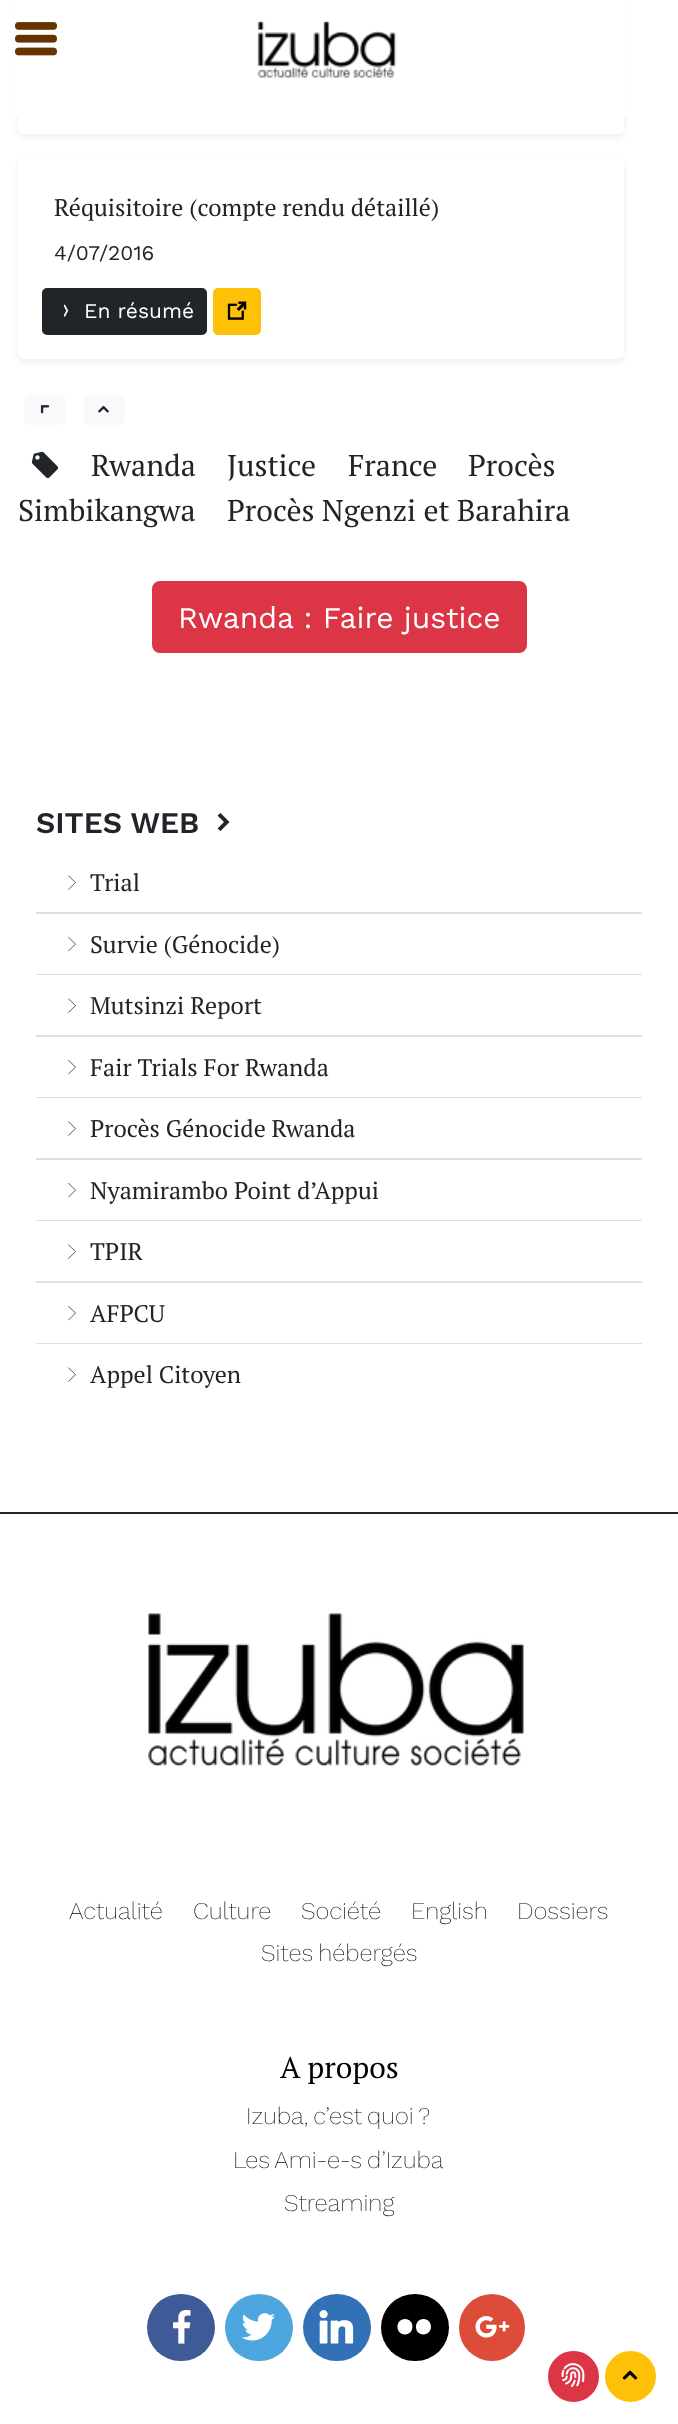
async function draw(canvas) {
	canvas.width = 678;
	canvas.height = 2424;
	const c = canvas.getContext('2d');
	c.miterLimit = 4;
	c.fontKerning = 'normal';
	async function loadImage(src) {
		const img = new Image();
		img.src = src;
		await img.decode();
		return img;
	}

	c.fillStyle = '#fff';
	c.fillRect(0, 0, 678, 2424);
	c.fillStyle = '#00000012';
	c.filter = 'blur(3px)';
	c.beginPath();
	c.roundRect(18, -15, 606, 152, 6);
	c.fill();
	c.filter = 'none';
	c.fillStyle = '#fff';
	c.beginPath();
	c.roundRect(18, -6, 606, 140, 6);
	c.fill();
	c.fillRect(15, 0, 612, 117);
	c.drawImage(await loadImage('img1.png'), 15, 22, 42, 34);
	c.drawImage(await loadImage('img2.png'), 257, 20, 140, 58);
	c.fillStyle = '#00000012';
	c.filter = 'blur(3px)';
	c.beginPath();
	c.roundRect(18, 161, 606, 201, 6);
	c.fill();
	c.filter = 'none';
	c.fillStyle = '#fff';
	c.beginPath();
	c.roundRect(18, 158, 606, 201, 6);
	c.fill();
	c.font = '24px PT Serif';
	c.fillStyle = '#212529';
	c.fillText('Réquisitoire (compte rendu détaillé)', 54, 216);
	c.font = '21px Work Sans';
	c.fillText('4/07/2016', 54, 260);
	c.beginPath();
	c.roundRect(43, 289, 163, 45, 4);
	c.fill();
	c.strokeStyle = '#212529';
	c.lineWidth = 2;
	c.stroke();
	c.drawImage(await loadImage('img3.png'), 63, 304, 6, 13);
	c.fillStyle = '#fff';
	c.fillText('En résumé', 84, 318);
	c.fillStyle = '#ffc107';
	c.beginPath();
	c.roundRect(214, 289, 46, 45, 4);
	c.fill();
	c.strokeStyle = '#ffc107';
	c.stroke();
	c.drawImage(await loadImage('img4.png'), 227, 301, 20, 19);
	c.fillStyle = '#f8f9fa';
	c.beginPath();
	c.roundRect(24, 395, 42, 30, 6);
	c.fill();
	c.drawImage(await loadImage('img5.png'), 40, 405, 10, 9);
	c.beginPath();
	c.roundRect(84, 395, 41, 30, 6);
	c.fill();
	c.drawImage(await loadImage('img6.png'), 98, 405, 11, 8);
	c.drawImage(await loadImage('img7.png'), 31, 451, 28, 28);
	c.font = '30px PT Serif';
	c.fillStyle = '#212529';
	for (const [text, x, y] of [
		['Rwanda', 91, 476],
		['Justice', 227, 476],
		['France', 348, 476],
		['Procès', 468, 476],
		['Simbikangwa', 18, 521],
		['Procès Ngenzi et Barahira', 227, 521],
	]) {
		c.fillText(text, x, y);
	}
	c.fillStyle = '#dc3545';
	c.beginPath();
	c.roundRect(153, 582, 373, 70, 7);
	c.fill();
	c.strokeStyle = '#dc3545';
	c.stroke();
	c.font = '30px Work Sans';
	c.fillStyle = '#fff';
	c.fillText('Rwanda : Faire justice', 178, 628);
	c.font = '600 30px Work Sans';
	c.fillStyle = '#212529';
	c.fillText('SITES WEB', 36, 833);
	c.beginPath();
	c.moveTo(220.5, 831);
	c.lineTo(229.5, 822);
	c.lineTo(220.5, 813);
	c.lineTo(217.5, 815.5);
	c.lineTo(224, 822);
	c.lineTo(217.5, 828.5);
	c.closePath();
	c.fill();
	c.fillStyle = '#dfdfdf';
	c.fillRect(36, 912, 606, 2);
	c.drawImage(await loadImage('img8.png'), 68, 875, 8, 15);
	c.font = '24px PT Serif';
	c.fillStyle = '#212529';
	c.fillText('Trial', 90, 891);
	c.fillStyle = '#dfdfdf';
	c.fillRect(36, 974, 606, 1);
	c.drawImage(await loadImage('img9.png'), 68, 937, 8, 15);
	c.fillStyle = '#212529';
	c.fillText('Survie (Génocide)', 90, 953);
	c.fillStyle = '#dfdfdf';
	c.fillRect(36, 1035, 606, 2);
	c.drawImage(await loadImage('img8.png'), 68, 998, 8, 15);
	c.fillStyle = '#212529';
	c.fillText('Mutsinzi Report', 90, 1014);
	c.fillStyle = '#dfdfdf';
	c.fillRect(36, 1097, 606, 1);
	c.drawImage(await loadImage('img9.png'), 68, 1060, 8, 15);
	c.fillStyle = '#212529';
	c.fillText('Fair Trials For Rwanda', 90, 1076);
	c.fillStyle = '#dfdfdf';
	c.fillRect(36, 1158, 606, 2);
	c.drawImage(await loadImage('img8.png'), 68, 1121, 8, 15);
	c.fillStyle = '#212529';
	c.fillText('Procès Génocide Rwanda', 90, 1137);
	c.fillStyle = '#dfdfdf';
	c.fillRect(36, 1220, 606, 1);
	c.drawImage(await loadImage('img9.png'), 68, 1183, 8, 15);
	c.fillStyle = '#212529';
	c.fillText('Nyamirambo Point d’Appui', 90, 1199);
	c.fillStyle = '#dfdfdf';
	c.fillRect(36, 1281, 606, 2);
	c.drawImage(await loadImage('img8.png'), 68, 1244, 8, 15);
	c.fillStyle = '#212529';
	c.fillText('TPIR', 90, 1260);
	c.fillStyle = '#dfdfdf';
	c.fillRect(36, 1343, 606, 1);
	c.drawImage(await loadImage('img9.png'), 68, 1306, 8, 15);
	c.fillStyle = '#212529';
	c.fillText('AFPCU', 90, 1322);
	c.drawImage(await loadImage('img8.png'), 68, 1367, 8, 15);
	c.fillText('Appel Citoyen', 90, 1383);
	c.fillRect(0, 1512, 678, 2);
	c.drawImage(await loadImage('img10.png'), 148, 1613, 376, 154);
	c.font = '200 24px Work Sans';
	c.fillStyle = '#000';
	for (const [text, x, y] of [
		['Actualité', 69, 1919],
		['Culture', 193, 1919],
		['Société', 301, 1919],
		['English', 411, 1919],
		['Dossiers', 517, 1919],
	]) {
		c.fillText(text, x, y);
	}
	c.wordSpacing = '-2px';
	c.fillText('Sites hébergés', 261, 1961);
	c.wordSpacing = '0px';
	c.font = '30px PT Serif';
	c.fillText('A propos', 280, 2078);
	c.wordSpacing = '-2px';
	c.font = '200 24px Work Sans';
	c.fillText('Izuba, c’est quoi ?', 246, 2124);
	c.fillText('Les Ami-e-s d’Izuba', 233, 2168);
	c.wordSpacing = '0px';
	c.fillText('Streaming', 284, 2211);
	c.fillStyle = '#3e5b98';
	c.beginPath();
	c.roundRect(147, 2294, 68, 67, 33.5);
	c.fill();
	c.drawImage(await loadImage('img11.png'), 173, 2310, 18, 34);
	c.fillStyle = '#4da7de';
	c.beginPath();
	c.roundRect(225, 2294, 68, 67, 33.5);
	c.fill();
	c.drawImage(await loadImage('img12.png'), 241, 2313, 34, 28);
	c.fillStyle = '#3371b7';
	c.beginPath();
	c.roundRect(303, 2294, 68, 67, 33.5);
	c.fill();
	c.drawImage(await loadImage('img13.png'), 319, 2310, 35, 34);
	c.fillStyle = '#000';
	c.beginPath();
	c.roundRect(381, 2294, 68, 67, 33.5);
	c.fill();
	c.fillStyle = '#fff';
	c.beginPath();
	c.moveTo(405, 2334.5);
	c.bezierCurveTo(395, 2334.5, 395, 2319, 405, 2319);
	c.bezierCurveTo(415, 2319, 415, 2334.5, 405, 2334.5);
	c.closePath();
	c.moveTo(423.5, 2334.5);
	c.bezierCurveTo(413.5, 2334.5, 413.5, 2319, 423.5, 2319);
	c.bezierCurveTo(433.5, 2319, 433.5, 2334.5, 423.5, 2334.5);
	c.closePath();
	c.fill();
	c.fillStyle = '#dd4b39';
	c.beginPath();
	c.roundRect(459, 2294, 66, 67, 33);
	c.fill();
	c.drawImage(await loadImage('img14.png'), 475, 2316, 35, 22);
	c.fillStyle = '#dc3545';
	c.beginPath();
	c.arc(573.5, 2376.5, 24.5, 0, 2 * Math.PI);
	c.fill();
	c.stroke();
	c.drawImage(await loadImage('img15.png'), 561, 2363, 24, 25);
	c.fillStyle = '#ffc107';
	c.beginPath();
	c.arc(630.5, 2376.5, 24.5, 0, 2 * Math.PI);
	c.fill();
	c.strokeStyle = '#ffc107';
	c.stroke();
	c.drawImage(await loadImage('img16.png'), 622, 2370, 16, 10);
}

draw(document.querySelector('canvas'));
